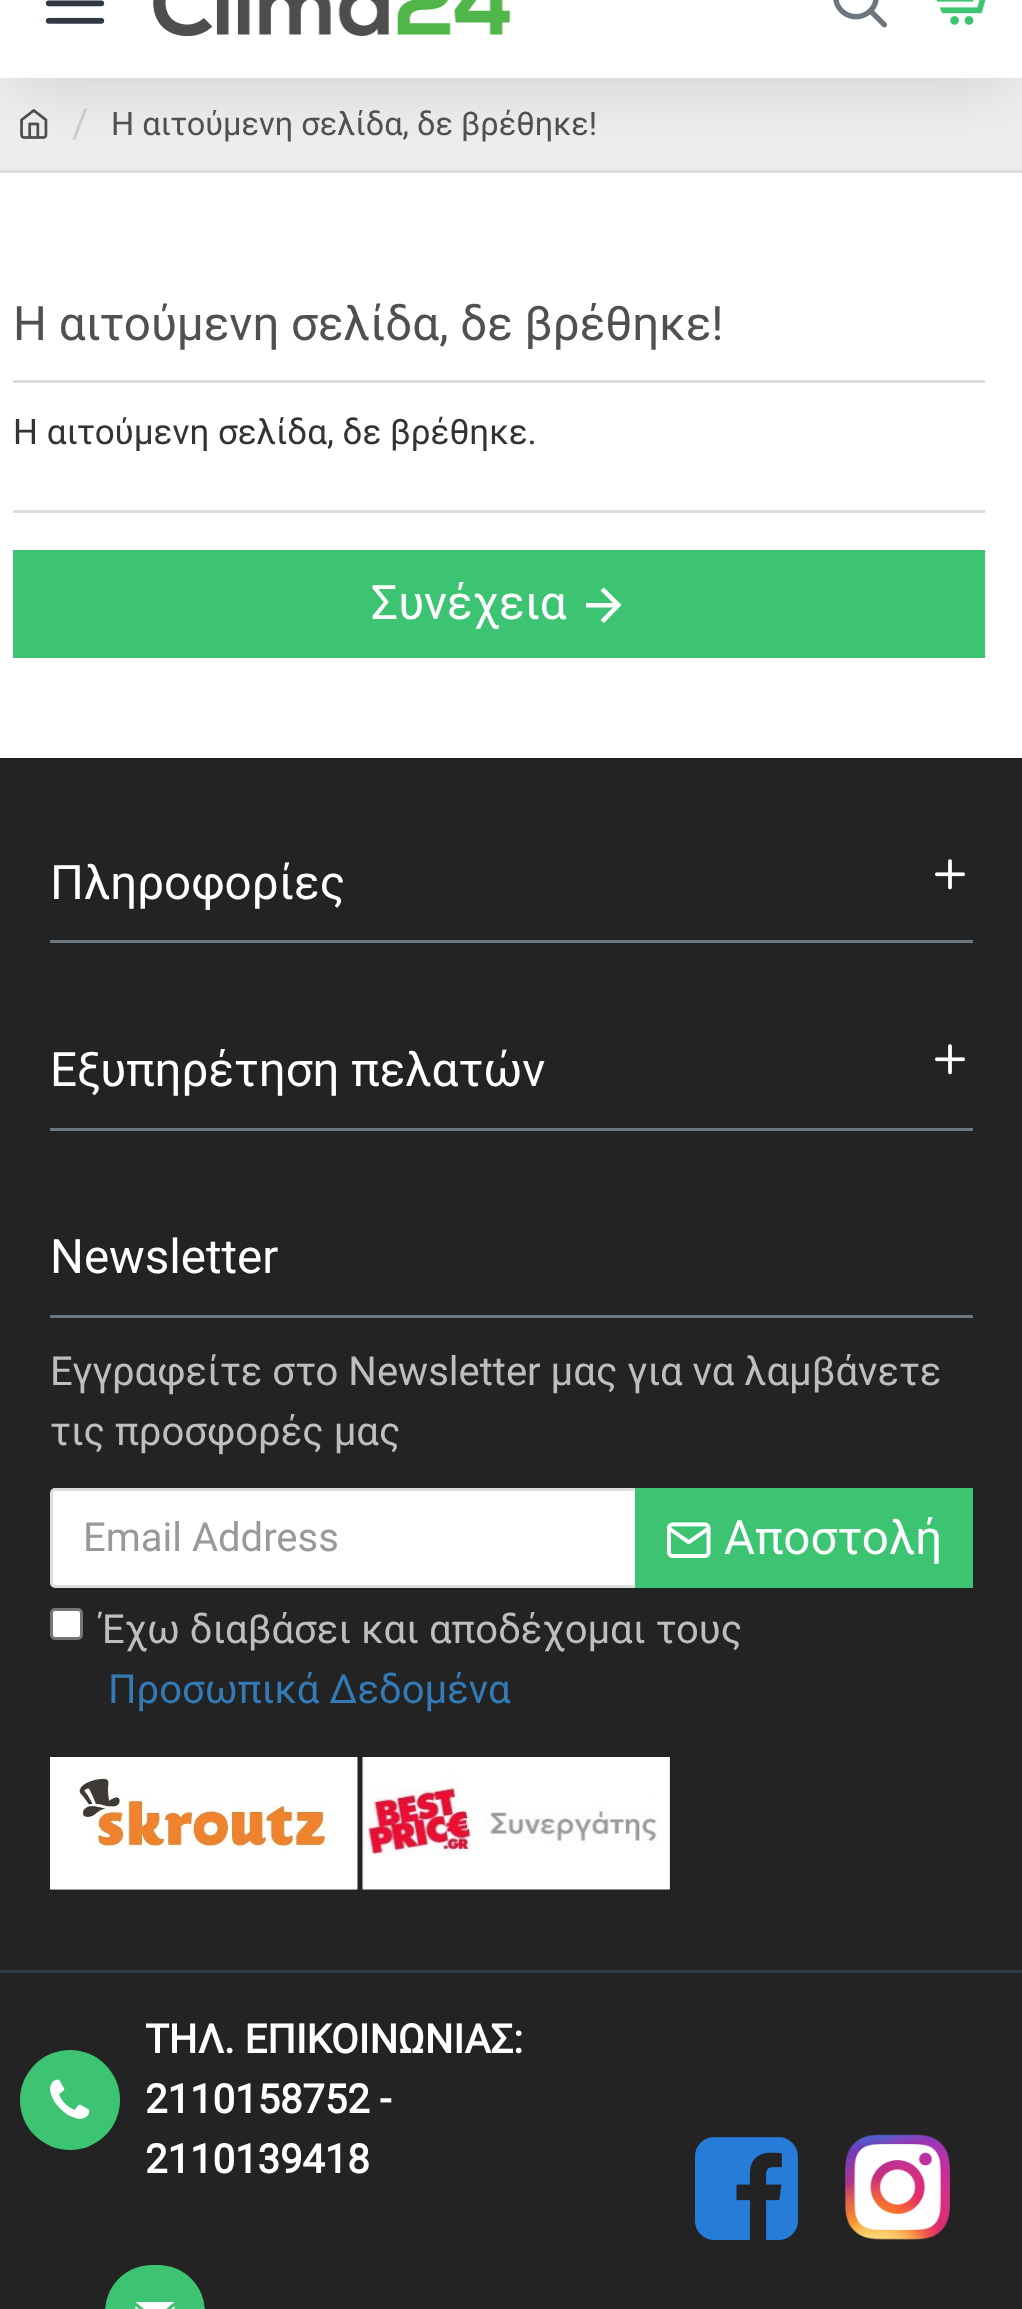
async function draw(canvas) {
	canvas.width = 1022;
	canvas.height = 2309;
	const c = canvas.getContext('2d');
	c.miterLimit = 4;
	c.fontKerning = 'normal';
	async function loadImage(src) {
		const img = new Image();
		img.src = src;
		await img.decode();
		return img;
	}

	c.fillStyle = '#fff';
	c.fillRect(0, 0, 1022, 2309);
	c.fillStyle = '#eee';
	c.fillRect(0, 78, 1022, 92);
	c.fillStyle = '#ddd';
	c.fillRect(0, 170, 1022, 3);
	c.drawImage(await loadImage('img5.png'), 20, 109, 28, 30);
	c.save();
	c.beginPath();
	c.moveTo(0, 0);
	c.lineTo(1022, 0);
	c.lineTo(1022, 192);
	c.lineTo(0, 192);
	c.closePath();
	c.moveTo(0, -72);
	c.lineTo(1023, -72);
	c.lineTo(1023, 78);
	c.lineTo(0, 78);
	c.closePath();
	c.clip('evenodd');
	c.fillStyle = '#00000026';
	c.filter = 'blur(37.5px)';
	c.beginPath();
	c.rect(13, -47, 997, 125);
	c.fill();
	c.filter = 'none';
	c.restore();
	c.drawImage(await loadImage('img1.png'), 45, 0, 60, 24);
	c.drawImage(await loadImage('img2.png'), 833, 0, 55, 28);
	c.drawImage(await loadImage('img3.png'), 936, 0, 50, 25);
	c.drawImage(await loadImage('img4.png'), 153, 0, 358, 36);
	c.font = '40px Roboto';
	c.fillStyle = '#ccc';
	c.fillText('/', 72, 137);
	c.font = '32.5px Roboto';
	c.fillStyle = '#505050';
	c.fillText('Η αιτούμενη σελίδα, δε βρέθηκε!', 111, 135);
	c.fillStyle = '#ddd';
	c.fillRect(13, 380, 972, 3);
	c.font = '47.5px Roboto';
	c.fillStyle = '#505050';
	c.fillText('Η αιτούμενη σελίδα, δε βρέθηκε!', 13, 340);
	c.font = '35px Roboto';
	c.fillStyle = '#333';
	c.fillText('Η αιτούμενη σελίδα, δε βρέθηκε.', 13, 444);
	c.fillStyle = '#ddd';
	c.fillRect(13, 510, 972, 3);
	c.fillStyle = '#3cc472';
	c.fillRect(13, 550, 972, 108);
	c.font = '47.5px Roboto';
	c.fillStyle = '#fff';
	c.fillText('Συνέχεια', 371, 619);
	c.beginPath();
	c.moveTo(604, 587.5);
	c.lineTo(621.5, 605);
	c.lineTo(604, 623);
	c.lineTo(600.5, 620);
	c.lineTo(613, 607.5);
	c.lineTo(586, 607.5);
	c.lineTo(586, 603);
	c.lineTo(613, 603);
	c.lineTo(600.5, 590.5);
	c.closePath();
	c.fill();
	c.fillStyle = '#232323';
	c.fillRect(0, 758, 1022, 1551);
	c.fillStyle = '#6d767d';
	c.fillRect(50, 940, 923, 3);
	c.fillStyle = '#fff';
	c.fillText('Πληροφορίες', 50, 899);
	c.drawImage(await loadImage('img6.png'), 935, 859, 30, 31);
	c.fillStyle = '#6d767d';
	c.fillRect(50, 1128, 923, 3);
	c.fillStyle = '#fff';
	c.fillText('Εξυπηρέτηση πελατών', 50, 1086);
	c.drawImage(await loadImage('img6.png'), 935, 1044, 30, 31);
	c.fillStyle = '#6d767d';
	c.fillRect(50, 1315, 923, 3);
	c.fillStyle = '#fff';
	c.fillText('Newsletter', 50, 1273);
	c.font = '40px Roboto';
	c.fillStyle = '#bebebe';
	c.fillText('Εγγραφείτε στο Newsletter μας για να λαμβάνετε', 50, 1385);
	c.fillText('τις προσφορές μας', 50, 1445);
	c.fillStyle = '#fff';
	c.beginPath();
	c.roundRect(51.5, 1489.5, 920, 97, 3.5);
	c.fill();
	c.strokeStyle = '#ddd';
	c.lineWidth = 3;
	c.stroke();
	c.fillStyle = '#999';
	c.fillText('Email Address', 83, 1551);
	c.fillStyle = '#3cc472';
	c.fillRect(635, 1488, 338, 100);
	c.drawImage(await loadImage('img7.png'), 667, 1522, 44, 36);
	c.font = '47.5px Roboto';
	c.fillStyle = '#fff';
	c.fillText('Αποστολή', 724, 1554);
	c.beginPath();
	c.roundRect(51.5, 1609.5, 30, 29, 3.5);
	c.fill();
	c.strokeStyle = '#767676';
	c.stroke();
	c.font = '40px Roboto';
	c.fillStyle = '#bebebe';
	c.fillText('Έχω διαβάσει και αποδέχομαι τους', 100, 1643);
	c.fillStyle = '#337ab7';
	c.fillText('Προσωπικά Δεδομένα', 108, 1703);
	c.drawImage(await loadImage('img8.png'), 50, 1757, 308, 133);
	c.drawImage(await loadImage('img9.png'), 362, 1757, 308, 133);
	c.fillStyle = '#303841';
	c.fillRect(0, 1970, 1022, 3);
	c.fillStyle = '#3cc472';
	c.beginPath();
	c.arc(70, 2100, 50, 0, 2 * Math.PI);
	c.fill();
	c.drawImage(await loadImage('img10.png'), 50, 2079, 40, 40);
	c.font = 'bold 40px Roboto';
	c.fillStyle = '#fff';
	for (const [text, x, y] of [
		['ΤΗΛ. ΕΠΙΚΟΙΝΩΝΙΑΣ:', 145, 2053],
		['2110158752 -', 145, 2113],
		['2110139418', 145, 2173],
	]) {
		c.fillText(text, x, y);
	}
	c.fillStyle = '#3cc472';
	c.beginPath();
	c.roundRect(105, 2265, 100, 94, 50);
	c.fill();
	c.fillStyle = '#fff';
	c.beginPath();
	c.moveTo(155, 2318);
	c.lineTo(135.5, 2302);
	c.lineTo(174.5, 2302);
	c.closePath();
	c.moveTo(146, 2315);
	c.lineTo(135.5, 2306);
	c.lineTo(135.5, 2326.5);
	c.closePath();
	c.moveTo(164, 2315);
	c.lineTo(174.5, 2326.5);
	c.lineTo(174.5, 2306);
	c.closePath();
	c.moveTo(161, 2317);
	c.lineTo(155, 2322);
	c.lineTo(149, 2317);
	c.lineTo(135.5, 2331);
	c.lineTo(174.5, 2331);
	c.closePath();
	c.fill();
	c.drawImage(await loadImage('img11.png'), 695, 2137, 103, 103);
	c.drawImage(await loadImage('img12.png'), 845, 2134, 105, 106);
}

draw(document.querySelector('canvas'));
